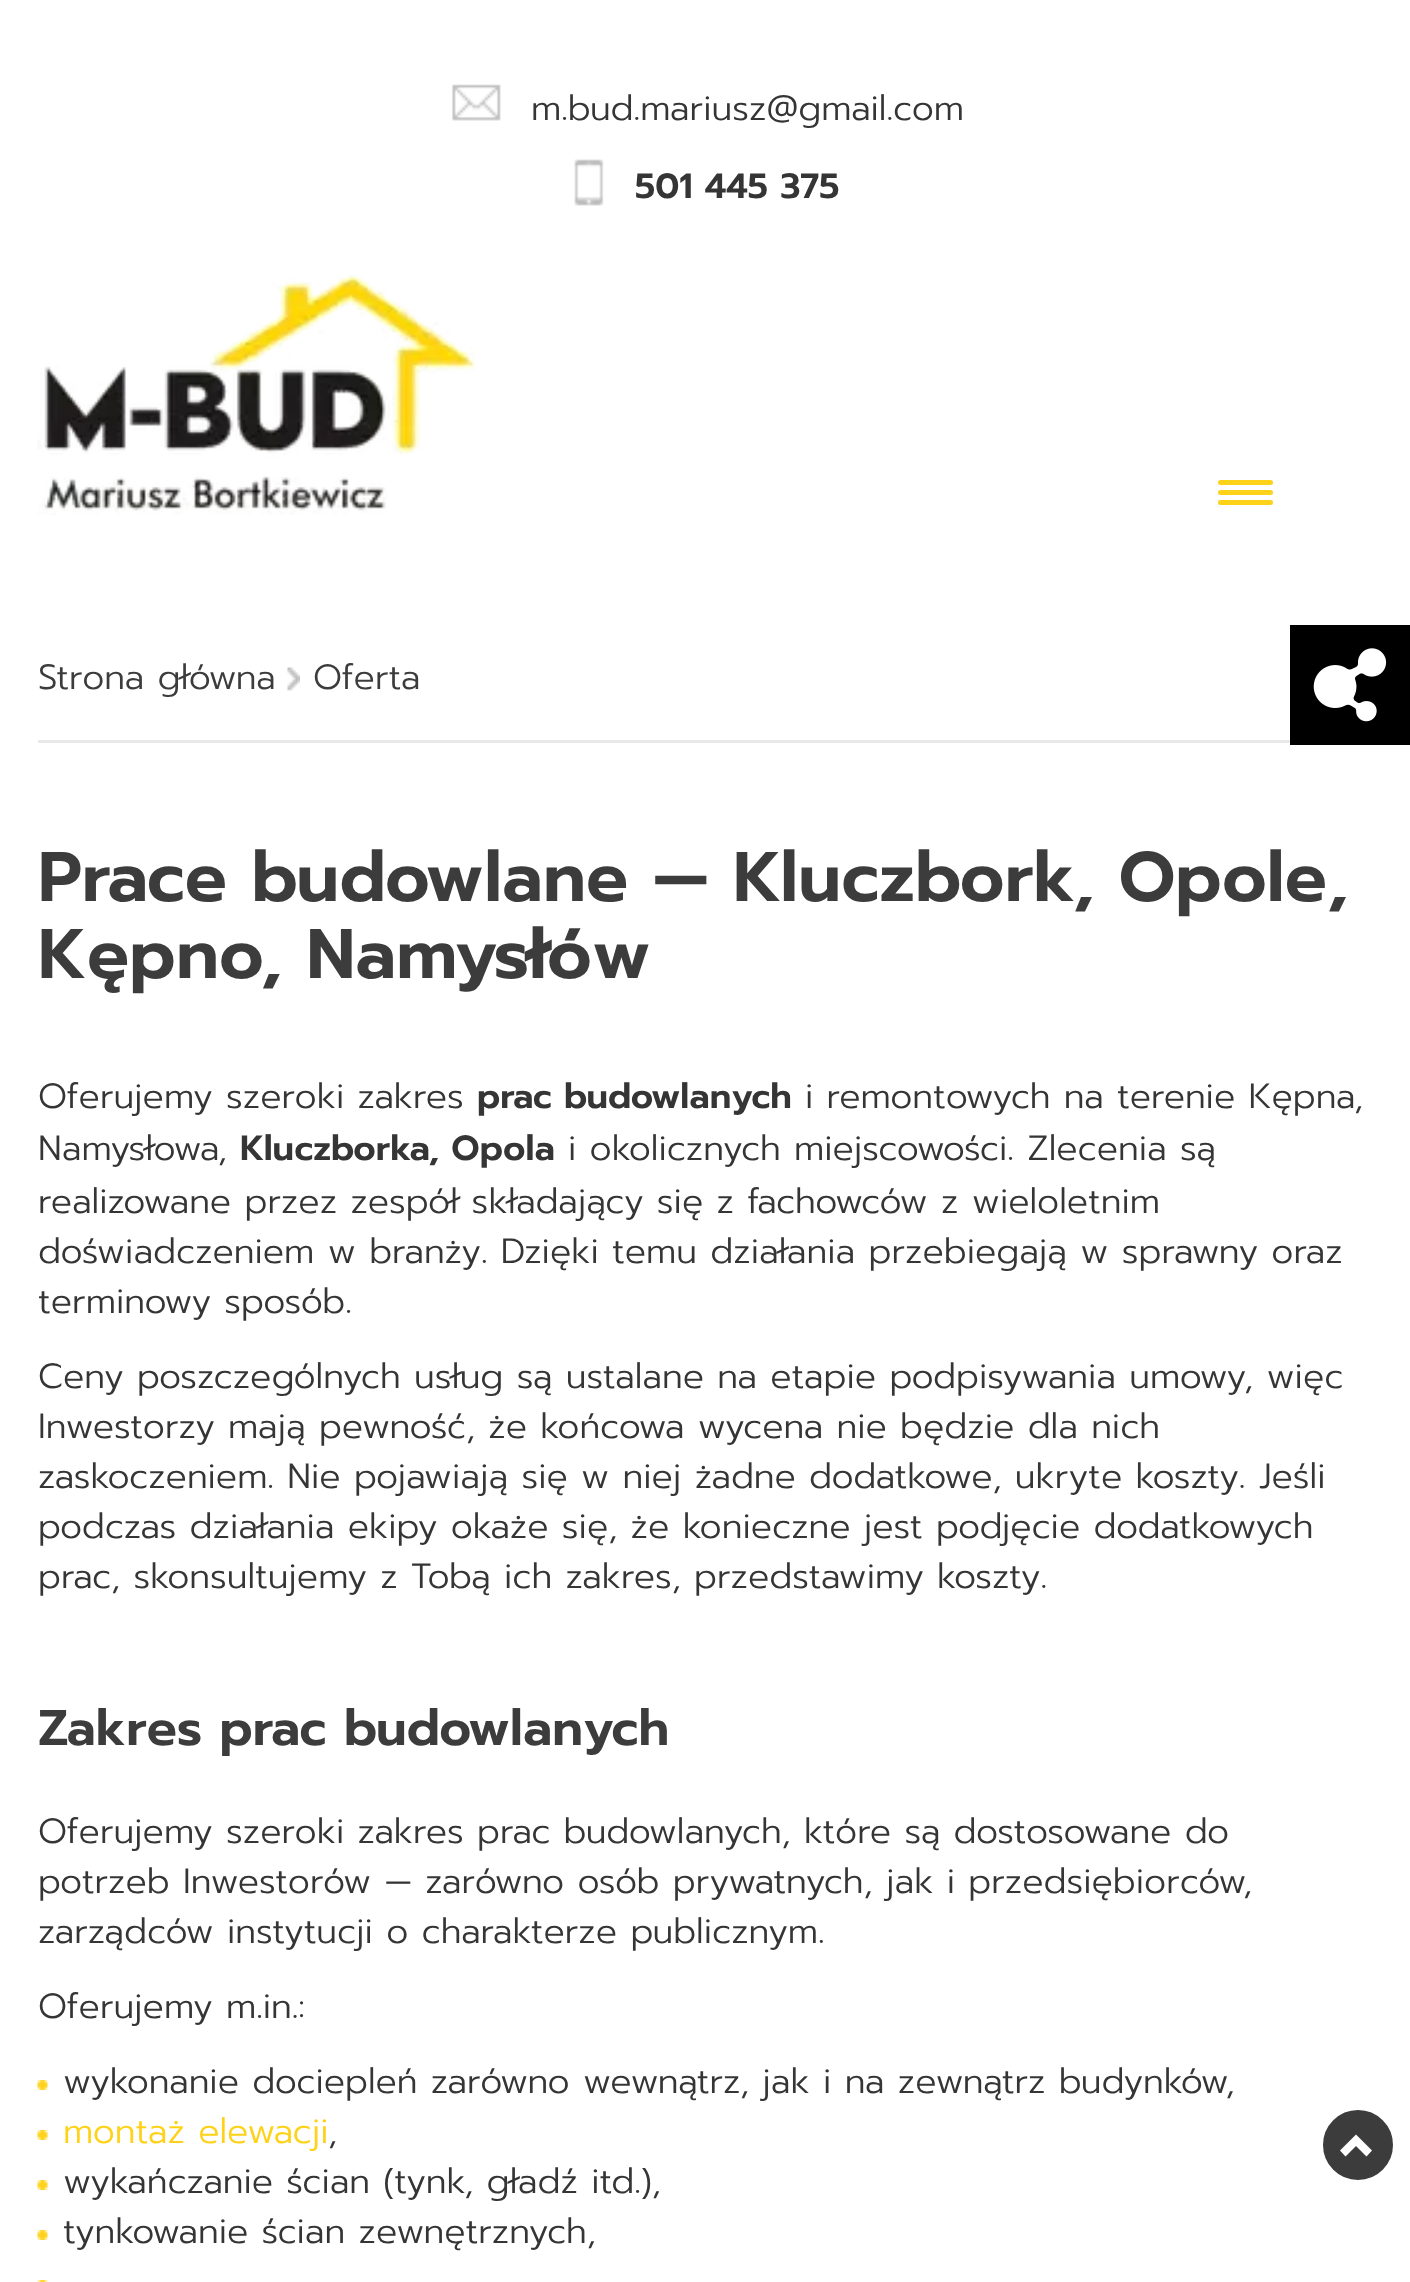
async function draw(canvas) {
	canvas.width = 1410;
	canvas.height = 2282;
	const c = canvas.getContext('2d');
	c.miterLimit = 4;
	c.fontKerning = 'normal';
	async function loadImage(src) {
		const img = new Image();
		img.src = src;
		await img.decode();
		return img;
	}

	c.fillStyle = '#fff';
	c.fillRect(0, 0, 1410, 2282);
	c.drawImage(await loadImage('img1.png'), 452, 84, 49, 37);
	c.font = '300 35px Prompt';
	c.fillStyle = '#353536';
	c.fillText('m.bud.mariusz@gmail.com', 531, 120);
	c.drawImage(await loadImage('img2.png'), 574, 159, 30, 47);
	c.font = '600 35px Prompt';
	c.fillText('501 445 375', 635, 198);
	c.drawImage(await loadImage('img3.png'), 37, 274, 438, 241);
	c.fillStyle = '#fed218';
	c.beginPath();
	c.roundRect(1218, 480, 55, 5, 2.5);
	c.fill();
	c.beginPath();
	c.roundRect(1218, 490, 55, 5, 2.5);
	c.fill();
	c.beginPath();
	c.roundRect(1218, 500, 55, 5, 2.5);
	c.fill();
	c.fillStyle = '#000';
	c.fillRect(1290, 625, 120, 120);
	c.drawImage(await loadImage('img4.png'), 1313, 648, 74, 74);
	c.fillStyle = '#3c3c3c';
	c.beginPath();
	c.arc(1358, 2145, 37.5, 0, 2 * Math.PI);
	c.fill();
	c.strokeStyle = '#fff';
	c.lineWidth = 5;
	c.stroke();
	c.fillStyle = '#fff';
	c.beginPath();
	c.moveTo(1372, 2150.5);
	c.lineTo(1366.5, 2156.5);
	c.lineTo(1356, 2146);
	c.lineTo(1345.5, 2156.5);
	c.lineTo(1340, 2150.5);
	c.lineTo(1356, 2134.5);
	c.closePath();
	c.fill();
	c.fillStyle = '#e9e9e9';
	c.fillRect(38, 740, 1252, 3);
	c.font = '300 35px Prompt';
	c.fillStyle = '#3c3c3c';
	c.fillText('Strona główna', 38, 689);
	c.drawImage(await loadImage('img5.png'), 287, 667, 13, 24);
	c.fillText('Oferta', 313, 689);
	c.font = '600 70px Prompt';
	c.fillText('Prace budowlane — Kluczbork, Opole,', 38, 901);
	c.fillText('Kępno, Namysłów', 38, 978);
	c.font = '300 35px Prompt';
	c.fillStyle = '#353536';
	c.fillText('Oferujemy szeroki zakres', 38, 1108);
	c.font = '600 35px Prompt';
	c.fillText('prac budowlanych', 477, 1108);
	c.font = '300 35px Prompt';
	c.fillText('i remontowych na terenie Kępna,', 805, 1108);
	c.fillText('Namysłowa,', 38, 1160);
	c.font = '600 35px Prompt';
	c.fillText('Kluczborka, Opola', 240, 1160);
	c.font = '300 35px Prompt';
	for (const [text, x, y] of [
		['i okolicznych miejscowości. Zlecenia są', 568, 1160],
		['realizowane przez zespół składający się z fachowców z wieloletnim', 38, 1213],
		['doświadczeniem w branży. Dzięki temu działania przebiegają w sprawny oraz', 38, 1263],
		['terminowy sposób.', 38, 1313],
		['Ceny poszczególnych usług są ustalane na etapie podpisywania umowy, więc', 38, 1388],
		['Inwestorzy mają pewność, że końcowa wycena nie będzie dla nich', 38, 1438],
		['zaskoczeniem. Nie pojawiają się w niej żadne dodatkowe, ukryte koszty. Jeśli', 38, 1488],
		['podczas działania ekipy okaże się, że konieczne jest podjęcie dodatkowych', 38, 1538],
		['prac, skonsultujemy z Tobą ich zakres, przedstawimy koszty.', 38, 1588],
	]) {
		c.fillText(text, x, y);
	}
	c.font = '600 50px Prompt';
	c.fillStyle = '#3c3c3c';
	c.fillText('Zakres prac budowlanych', 38, 1745);
	c.font = '300 35px Prompt';
	c.fillStyle = '#353536';
	for (const [text, x, y] of [
		['Oferujemy szeroki zakres prac budowlanych, które są dostosowane do', 38, 1843],
		['potrzeb Inwestorów — zarówno osób prywatnych, jak i przedsiębiorców,', 38, 1893],
		['zarządców instytucji o charakterze publicznym.', 38, 1943],
		['Oferujemy m.in.:', 38, 2018],
	]) {
		c.fillText(text, x, y);
	}
	c.drawImage(await loadImage('img6.png'), 37, 2080, 11, 10);
	c.fillText('wykonanie dociepleń zarówno wewnątrz, jak i na zewnątrz budynków,', 63, 2093);
	c.drawImage(await loadImage('img6.png'), 37, 2130, 11, 10);
	c.fillStyle = '#fed218';
	c.fillText('montaż elewacji', 63, 2143);
	c.fillStyle = '#353536';
	c.fillText(',', 328, 2143);
	c.drawImage(await loadImage('img6.png'), 37, 2180, 11, 10);
	c.fillText('wykańczanie ścian (tynk, gładź itd.),', 63, 2193);
	c.drawImage(await loadImage('img6.png'), 37, 2230, 11, 10);
	c.fillText('tynkowanie ścian zewnętrznych,', 63, 2243);
	c.drawImage(await loadImage('img7.png'), 37, 2280, 11, 2);
}

draw(document.querySelector('canvas'));
